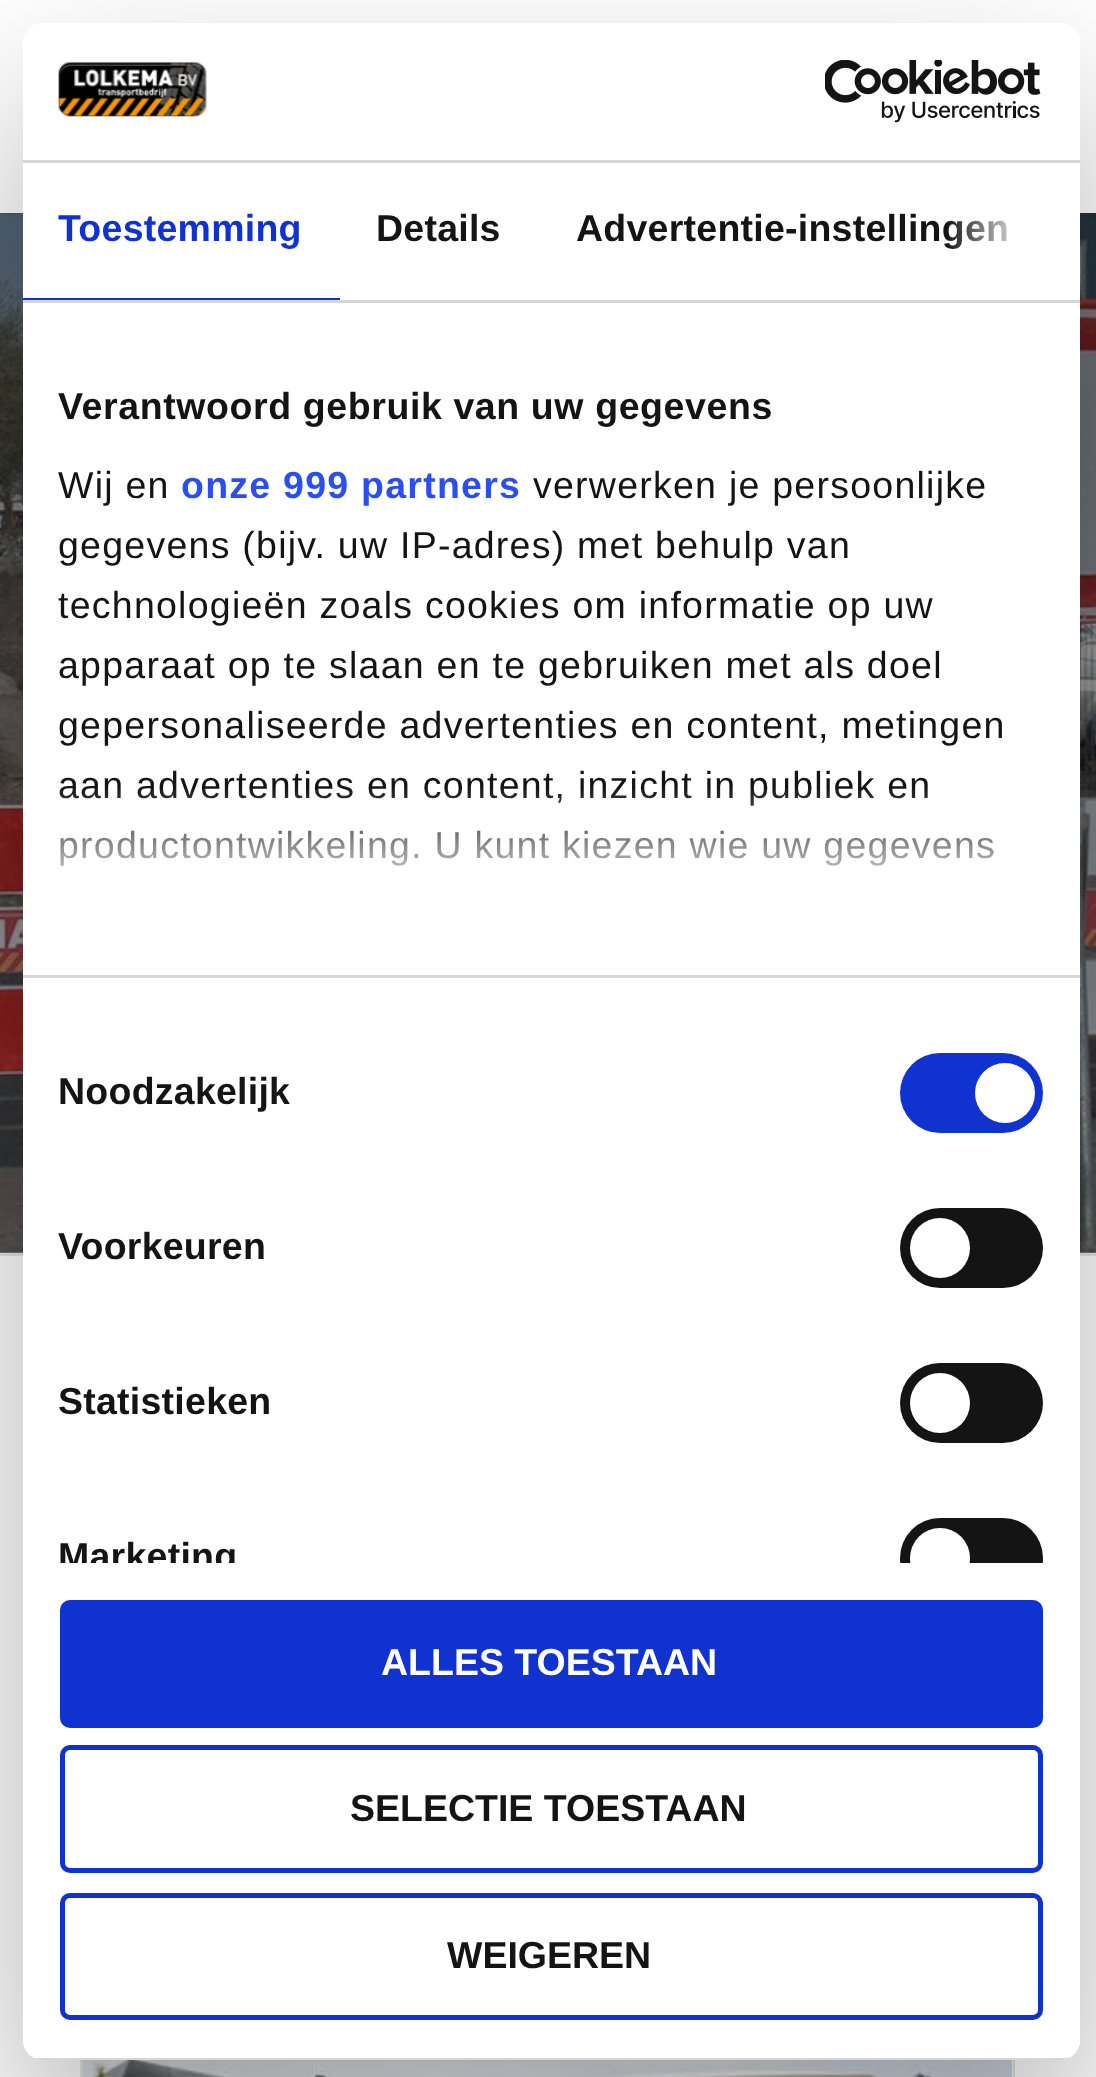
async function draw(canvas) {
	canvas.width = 1096;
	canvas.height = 2077;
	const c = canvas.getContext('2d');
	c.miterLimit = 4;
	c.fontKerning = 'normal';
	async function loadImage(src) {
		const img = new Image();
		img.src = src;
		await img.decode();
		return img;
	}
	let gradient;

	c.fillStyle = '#fff';
	c.fillRect(0, 0, 1096, 2077);
	c.fillStyle = '#999';
	c.fillRect(0, 1252, 1096, 1);
	c.drawImage(await loadImage('img1.png'), 0, 213, 1096, 1040);
	c.fillStyle = '#0000001a';
	c.filter = 'blur(2.5px)';
	c.beginPath();
	c.rect(-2, -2, 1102, 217);
	c.fill();
	c.filter = 'none';
	c.fillStyle = '#fff';
	c.fillRect(0, 0, 1096, 213);
	c.fillStyle = '#e5e5e5';
	c.fillRect(0, 1253, 1096, 3);
	c.strokeStyle = '#e6e6e6';
	c.lineWidth = 3;
	c.strokeRect(81.5, 2004.5, 932, 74);
	c.fillStyle = '#fff';
	c.fillRect(1012, 2060, 1, 17);
	c.drawImage(await loadImage('img2.png'), 82, 2060, 931, 17);
	c.save();
	c.beginPath();
	c.moveTo(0, 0);
	c.lineTo(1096, 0);
	c.lineTo(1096, 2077);
	c.lineTo(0, 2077);
	c.closePath();
	c.moveTo(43, 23);
	c.lineTo(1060, 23);
	c.bezierCurveTo(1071, 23, 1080, 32, 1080, 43);
	c.lineTo(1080, 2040);
	c.bezierCurveTo(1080, 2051, 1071, 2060, 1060, 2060);
	c.lineTo(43, 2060);
	c.bezierCurveTo(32, 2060, 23, 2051, 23, 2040);
	c.lineTo(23, 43);
	c.bezierCurveTo(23, 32, 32, 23, 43, 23);
	c.closePath();
	c.clip('evenodd');
	c.fillStyle = '#0000004d';
	c.filter = 'blur(85px)';
	c.beginPath();
	c.roundRect(23, 103, 1057, 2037, 20);
	c.fill();
	c.filter = 'none';
	c.restore();
	c.beginPath();
	c.roundRect(23, 23, 1057, 2037, 20);
	c.fill();
	c.fillStyle = '#d6d6d6';
	c.fillRect(23, 160, 1057, 3);
	c.drawImage(await loadImage('img3.png'), 58, 61, 149, 56);
	c.drawImage(await loadImage('img4.png'), 825, 60, 216, 63);
	c.fillRect(23, 300, 1057, 3);
	c.fillStyle = '#1032cf';
	c.fillRect(23, 298, 317, 2);
	c.letterSpacing = '0.25px';
	c.font = 'bold 37.5px Liberation Sans';
	c.fillText('Toestemming', 58, 241);
	c.fillStyle = '#141414';
	c.fillText('Details', 376, 241);
	c.fillText('Advertentie-instellingen', 576, 241);
	gradient = c.createLinearGradient(1079, 230, 946, 230);
	gradient.addColorStop(0, '#fff');
	gradient.addColorStop(0.5, '#ffffffcc');
	gradient.addColorStop(1, '#ffffff00');
	c.fillStyle = gradient;
	c.fillRect(948, 220, 59, 29);
	c.fillStyle = '#d6d6d6';
	c.fillRect(23, 975, 1057, 3);
	c.letterSpacing = '0.6px';
	c.fillStyle = '#141414';
	c.fillText('Verantwoord gebruik van uw gegevens', 58, 419);
	c.letterSpacing = '1.25px';
	c.font = '37.5px Liberation Sans';
	c.fillText('Wij en', 58, 498);
	c.font = 'bold 37.5px Liberation Sans';
	c.fillStyle = '#2a4eef';
	c.fillText('onze 999 partners', 181, 498);
	c.font = '37.5px Liberation Sans';
	c.fillStyle = '#141414';
	for (const [text, x, y] of [
		['verwerken je persoonlijke', 533, 498],
		['gegevens (bijv. uw IP-adres) met behulp van', 58, 558],
		['technologieën zoals cookies om informatie op uw', 58, 618],
		['apparaat op te slaan en te gebruiken met als doel', 58, 678],
		['gepersonaliseerde advertenties en content, metingen', 58, 738],
		['aan advertenties en content, inzicht in publiek en', 58, 798],
		['productontwikkeling. U kunt kiezen wie uw gegevens', 58, 858],
	]) {
		c.fillText(text, x, y);
	}
	gradient = c.createLinearGradient(534, 974, 534, 786);
	gradient.addColorStop(0, '#fff');
	gradient.addColorStop(0.5, '#ffffffcc');
	gradient.addColorStop(1, '#ffffff00');
	c.fillStyle = gradient;
	c.fillRect(59, 789, 934, 77);
	c.letterSpacing = '0.25px';
	c.font = 'bold 37.5px Liberation Sans';
	c.fillStyle = '#141414';
	c.fillText('Noodzakelijk', 58, 1104);
	c.fillStyle = '#1032cf';
	c.beginPath();
	c.roundRect(900, 1053, 143, 80, 40);
	c.fill();
	c.fillStyle = '#fff';
	c.beginPath();
	c.arc(1005, 1093, 30, 0, 2 * Math.PI);
	c.fill();
	c.fillStyle = '#141414';
	c.fillText('Voorkeuren', 58, 1259);
	c.beginPath();
	c.roundRect(900, 1208, 143, 80, 40);
	c.fill();
	c.fillStyle = '#fff';
	c.beginPath();
	c.arc(940, 1248, 30, 0, 2 * Math.PI);
	c.fill();
	c.fillStyle = '#141414';
	c.fillText('Statistieken', 58, 1414);
	c.beginPath();
	c.roundRect(900, 1363, 143, 80, 40);
	c.fill();
	c.fillStyle = '#fff';
	c.beginPath();
	c.arc(940, 1403, 30, 0, 2 * Math.PI);
	c.fill();
	c.save();
	c.beginPath();
	c.rect(23, 303, 1057, 1260);
	c.clip();
	c.fillStyle = '#141414';
	c.fillText('Marketing', 58, 1569);
	c.beginPath();
	c.roundRect(900, 1518, 143, 80, 40);
	c.fill();
	c.fillStyle = '#fff';
	c.beginPath();
	c.arc(940, 1558, 30, 0, 2 * Math.PI);
	c.fill();
	c.restore();
	c.save();
	c.beginPath();
	c.roundRect(23, 23, 1057, 2037, 20);
	c.clip();
	c.fillStyle = '#d6d6d6';
	c.fillRect(34, 2058, 1035, 2);
	c.restore();
	c.fillStyle = '#1032cf';
	c.beginPath();
	c.roundRect(62.5, 1602.5, 978, 123, 7.5);
	c.fill();
	c.strokeStyle = '#1032cf';
	c.lineWidth = 5;
	c.stroke();
	c.letterSpacing = '0px';
	c.fillStyle = '#fff';
	c.fillText('ALLES TOESTAAN', 381, 1675);
	c.beginPath();
	c.roundRect(62.5, 1747.5, 978, 123, 7.5);
	c.stroke();
	c.fillStyle = '#141414';
	c.fillText('SELECTIE TOESTAAN', 350, 1821);
	c.beginPath();
	c.roundRect(62.5, 1895.5, 978, 122, 7.5);
	c.stroke();
	c.fillText('WEIGEREN', 447, 1968);
}

draw(document.querySelector('canvas'));
